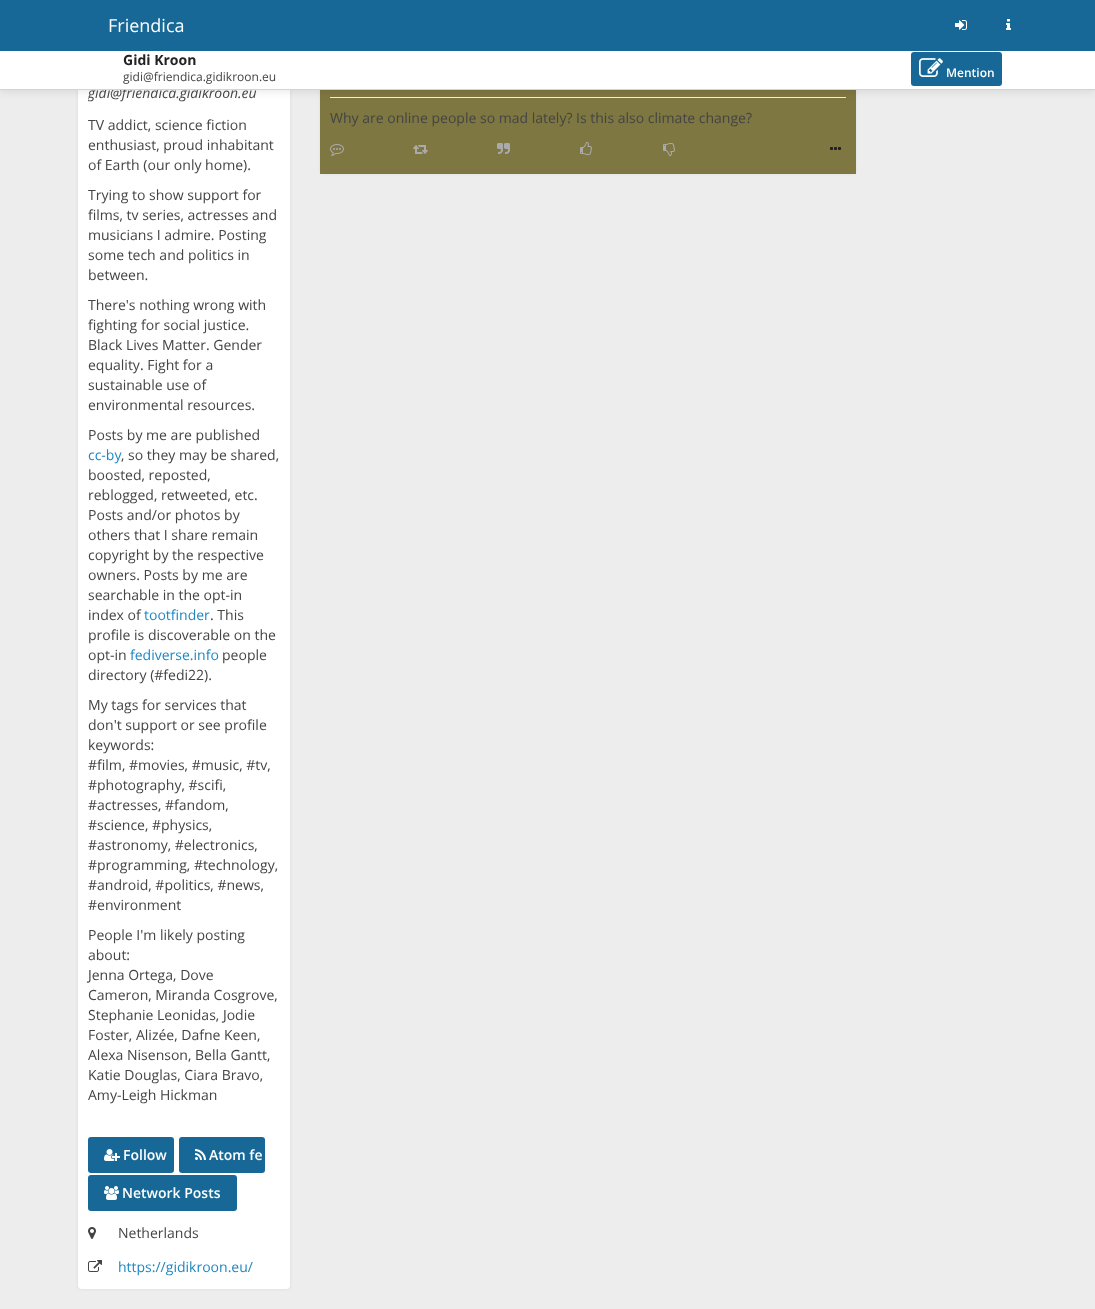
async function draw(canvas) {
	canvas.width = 1095;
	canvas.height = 1309;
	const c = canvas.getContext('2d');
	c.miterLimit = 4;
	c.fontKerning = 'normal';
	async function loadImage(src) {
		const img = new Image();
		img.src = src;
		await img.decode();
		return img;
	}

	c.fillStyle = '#ededed';
	c.fillRect(0, 0, 1095, 1309);
	c.fillStyle = '#dadada';
	c.filter = 'blur(1.5px)';
	c.beginPath();
	c.roundRect(78, 19, 212, 1270, 4);
	c.fill();
	c.filter = 'none';
	c.fillStyle = '#fff';
	c.beginPath();
	c.roundRect(78, 19, 212, 1270, 4);
	c.fill();
	c.fillStyle = '#dadada';
	c.filter = 'blur(1px)';
	c.beginPath();
	c.roundRect(320, 19, 536, 155, 4);
	c.fill();
	c.filter = 'none';
	c.fillStyle = '#7e7741';
	c.fillRect(320, 90, 536, 84);
	c.fillStyle = '#eee';
	c.fillRect(330, 97, 516, 1);
	c.fillStyle = '#0000001a';
	c.filter = 'blur(5px)';
	c.beginPath();
	c.rect(0, 51, 1095, 40);
	c.fill();
	c.filter = 'none';
	c.fillStyle = '#176896';
	c.fillRect(0, 0, 1095, 51);
	c.font = '18px Open Sans';
	c.fillStyle = '#fff';
	c.fillText('Friendica', 108, 32);
	c.drawImage(await loadImage('img1.png'), 955, 20, 12, 10);
	c.drawImage(await loadImage('img2.png'), 1006, 19, 5, 11);
	c.save();
	c.beginPath();
	c.rect(88, 83, 192, 22);
	c.clip();
	c.font = 'italic 14px Open Sans';
	c.fillStyle = '#444';
	c.fillText('gidi', 88, 98);
	c.restore();
	c.font = 'italic 14px Open Sans';
	c.fillStyle = '#444';
	c.fillText('@friendica.gidikroon.eu', 110, 98);
	c.fillStyle = '#fff';
	c.fillRect(0, 51, 1095, 38);
	c.fillStyle = '#d4d4d4';
	c.fillRect(0, 89, 1095, 1);
	c.font = 'bold 14px Open Sans';
	c.fillStyle = '#222';
	c.fillText('Gidi Kroon', 123, 65);
	c.font = '12px Open Sans';
	c.fillStyle = '#444';
	c.fillText('gidi@friendica.gidikroon.eu', 123, 81);
	c.fillStyle = '#176896';
	c.beginPath();
	c.roundRect(911, 52, 91, 34, 3);
	c.fill();
	c.drawImage(await loadImage('img3.png'), 919, 58, 24, 19);
	c.font = '600 12px Open Sans';
	c.fillStyle = '#fff';
	c.fillText('Mention', 946, 77);
	c.font = '14px Open Sans';
	c.fillStyle = '#444';
	for (const [text, x, y] of [
		['TV addict, science fiction', 88, 130],
		['enthusiast, proud inhabitant', 88, 150],
		['of Earth (our only home).', 88, 170],
		['Trying to show support for', 88, 200],
		['films, tv series, actresses and', 88, 220],
		['musicians I admire. Posting', 88, 240],
		['some tech and politics in', 88, 260],
		['between.', 88, 280],
		['There\'s nothing wrong with', 88, 310],
		['fighting for social justice.', 88, 330],
		['Black Lives Matter. Gender', 88, 350],
		['equality. Fight for a', 88, 370],
		['sustainable use of', 88, 390],
		['environmental resources.', 88, 410],
		['Posts by me are published', 88, 440],
	]) {
		c.fillText(text, x, y);
	}
	c.fillStyle = '#1e87c2';
	c.fillText('cc-by', 88, 460);
	c.fillStyle = '#444';
	for (const [text, x, y] of [
		[', so they may be shared,', 121, 460],
		['boosted, reposted,', 88, 480],
		['reblogged, retweeted, etc.', 88, 500],
		['Posts and/or photos by', 88, 520],
		['others that I share remain', 88, 540],
		['copyright by the respective', 88, 560],
		['owners. Posts by me are', 88, 580],
		['searchable in the opt-in', 88, 600],
		['index of', 88, 620],
	]) {
		c.fillText(text, x, y);
	}
	c.fillStyle = '#1e87c2';
	c.fillText('tootfinder', 144, 620);
	c.fillStyle = '#444';
	for (const [text, x, y] of [
		['. This', 210, 620],
		['profile is discoverable on the', 88, 640],
		['opt-in', 88, 660],
	]) {
		c.fillText(text, x, y);
	}
	c.fillStyle = '#1e87c2';
	c.fillText('fediverse.info', 130, 660);
	c.fillStyle = '#444';
	for (const [text, x, y] of [
		['people', 222, 660],
		['directory (#fedi22).', 88, 680],
		['My tags for services that', 88, 710],
		['don\'t support or see profile', 88, 730],
		['keywords:', 88, 750],
		['#film, #movies, #music, #tv,', 88, 770],
		['#photography, #scifi,', 88, 790],
		['#actresses, #fandom,', 88, 810],
		['#science, #physics,', 88, 830],
		['#astronomy, #electronics,', 88, 850],
		['#programming, #technology,', 88, 870],
		['#android, #politics, #news,', 88, 890],
		['#environment', 88, 910],
		['People I\'m likely posting', 88, 940],
		['about:', 88, 960],
		['Jenna Ortega, Dove', 88, 980],
		['Cameron, Miranda Cosgrove,', 88, 1000],
		['Stephanie Leonidas, Jodie', 88, 1020],
		['Foster, Alizée, Dafne Keen,', 88, 1040],
		['Alexa Nisenson, Bella Gantt,', 88, 1060],
		['Katie Douglas, Ciara Bravo,', 88, 1080],
		['Amy-Leigh Hickman', 88, 1100],
	]) {
		c.fillText(text, x, y);
	}
	c.fillStyle = '#176896';
	c.beginPath();
	c.roundRect(88, 1137, 86, 36, 3);
	c.fill();
	c.drawImage(await loadImage('img4.png'), 104, 1149, 16, 12);
	c.font = '600 14px Open Sans';
	c.fillStyle = '#fff';
	c.fillText('Follow', 123, 1160);
	c.fillStyle = '#176896';
	c.beginPath();
	c.roundRect(179, 1137, 86, 36, 3);
	c.fill();
	c.drawImage(await loadImage('img5.png'), 195, 1149, 11, 11);
	c.fillStyle = '#fff';
	c.fillText('Atom fe', 209, 1160);
	c.fillStyle = '#176896';
	c.beginPath();
	c.roundRect(88, 1175, 149, 36, 3);
	c.fill();
	c.drawImage(await loadImage('img6.png'), 104, 1186, 15, 14);
	c.fillStyle = '#fff';
	c.fillText('Network Posts', 122, 1198);
	c.drawImage(await loadImage('img7.png'), 88, 1227, 8, 12);
	c.font = '14px Open Sans';
	c.fillStyle = '#444';
	c.fillText('Netherlands', 118, 1238);
	c.drawImage(await loadImage('img8.png'), 88, 1260, 14, 12);
	c.fillStyle = '#1e87c2';
	c.fillText('https://gidikroon.eu/', 118, 1272);
	c.fillStyle = '#444';
	c.fillText('Why are online people so mad lately? Is this also climate change?', 330, 123);
	c.drawImage(await loadImage('img9.png'), 330, 144, 14, 12);
	c.drawImage(await loadImage('img10.png'), 413, 145, 15, 9);
	c.drawImage(await loadImage('img11.png'), 497, 143, 13, 11);
	c.drawImage(await loadImage('img12.png'), 580, 142, 12, 13);
	c.drawImage(await loadImage('img13.png'), 663, 143, 12, 13);
	c.drawImage(await loadImage('img14.png'), 830, 147, 11, 3);
}

draw(document.querySelector('canvas'));
